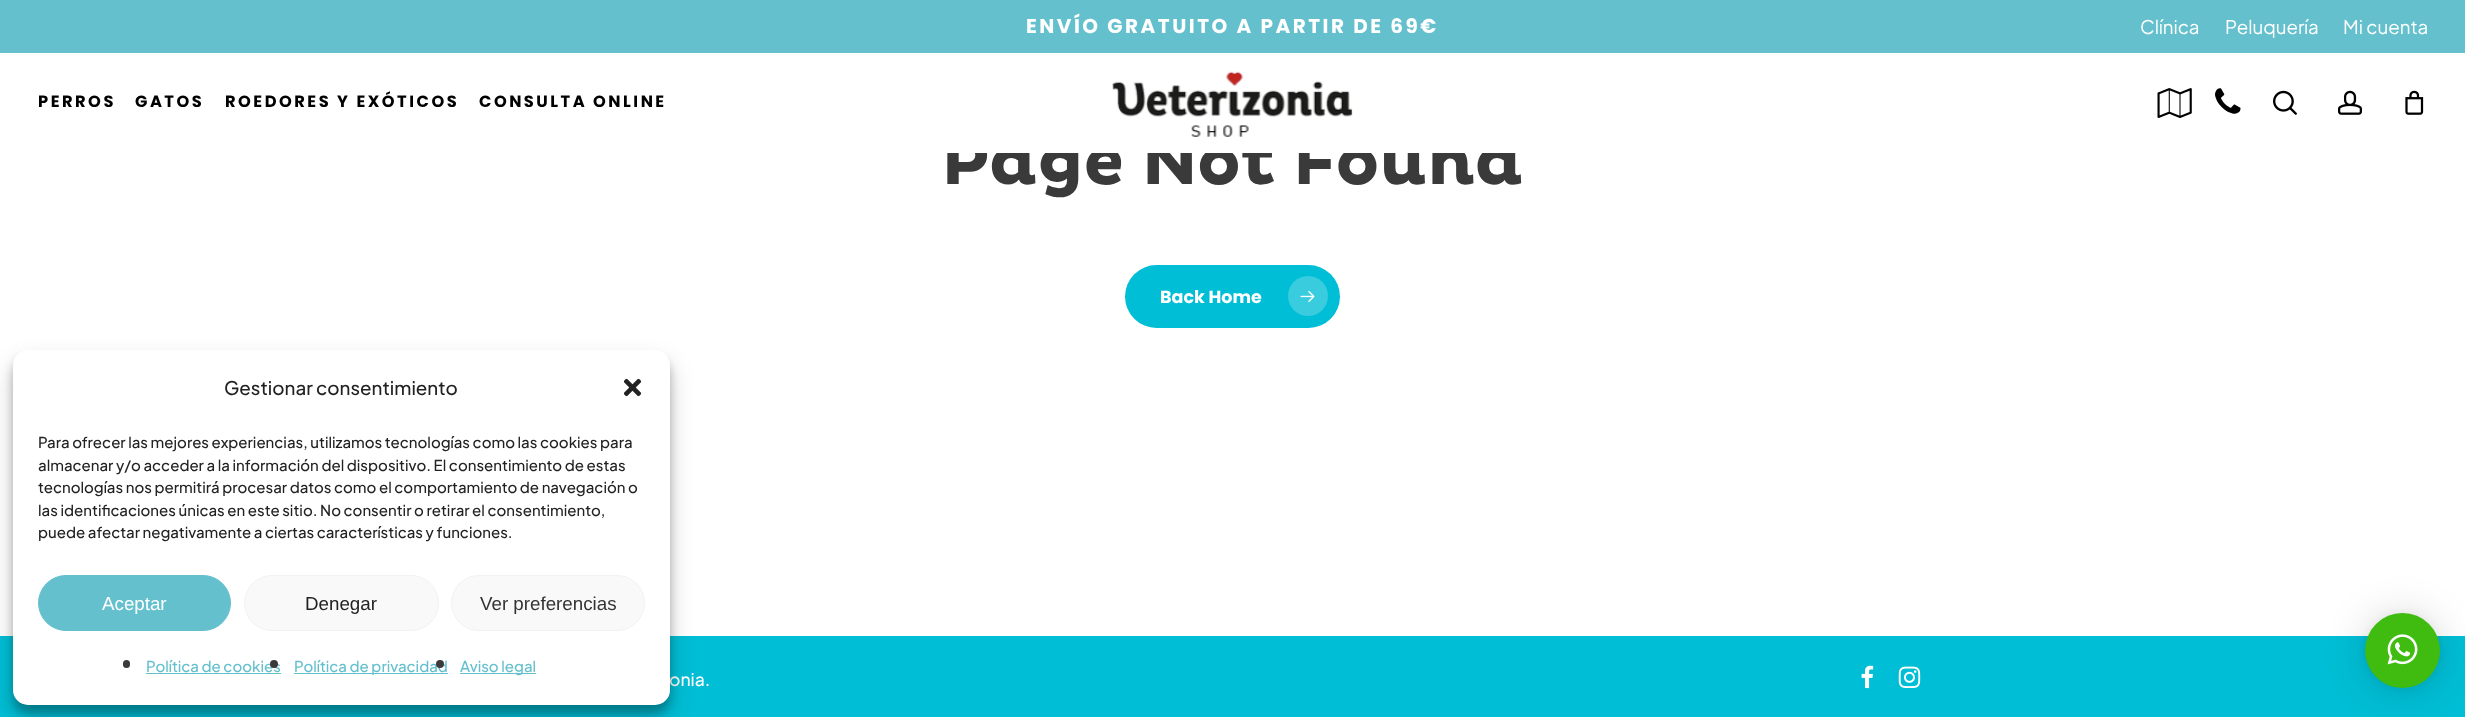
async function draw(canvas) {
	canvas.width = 2465;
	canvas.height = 717;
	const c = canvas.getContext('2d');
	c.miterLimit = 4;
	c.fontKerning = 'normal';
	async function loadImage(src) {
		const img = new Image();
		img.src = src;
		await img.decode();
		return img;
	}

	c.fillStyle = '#fff';
	c.fillRect(0, 0, 2465, 717);
	c.font = 'bold 67.5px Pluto';
	c.fillStyle = '#3a3a3a';
	c.fillText('Page Not Found', 941, 184);
	c.fillStyle = '#fff';
	c.fillRect(947, 136, 569, 17);
	c.fillStyle = '#65c0ce';
	c.fillRect(0, 0, 2465, 53);
	c.letterSpacing = '2.5px';
	c.font = 'bold 20px Poppins';
	c.fillStyle = '#fff';
	c.fillText('ENVÍO GRATUITO A PARTIR DE 69€', 1026, 33);
	c.letterSpacing = '0px';
	c.font = '18.75px Plus Jakarta Sans';
	for (const [text, x, y] of [
		['Clínica', 2140, 34],
		['Peluquería', 2225, 34],
		['Mi cuenta', 2343, 34],
	]) {
		c.fillText(text, x, y);
	}
	c.letterSpacing = '2.5px';
	c.font = 'bold 16.25px Poppins';
	c.fillStyle = '#000';
	for (const [text, x, y] of [
		['PERROS', 38, 107],
		['GATOS', 135, 107],
		['ROEDORES Y EXÓTICOS', 225, 107],
		['CONSULTA ONLINE', 479, 107],
	]) {
		c.fillText(text, x, y);
	}
	c.drawImage(await loadImage('img1.png'), 1112, 71, 241, 66);
	c.drawImage(await loadImage('img2.png'), 2157, 88, 35, 30);
	c.drawImage(await loadImage('img3.png'), 2215, 88, 26, 26);
	c.drawImage(await loadImage('img4.png'), 2273, 90, 24, 25);
	c.drawImage(await loadImage('img5.png'), 2338, 90, 24, 25);
	c.drawImage(await loadImage('img6.png'), 2405, 90, 19, 25);
	c.fillStyle = '#00bed5';
	c.beginPath();
	c.roundRect(1125, 265, 215, 63, 31.5);
	c.fill();
	c.letterSpacing = '0px';
	c.font = 'bold 17.5px Poppins';
	c.fillStyle = '#fff';
	c.fillText('Back Home', 1160, 303);
	c.fillStyle = '#38ccde';
	c.beginPath();
	c.arc(1308, 296, 20, 0, 2 * Math.PI);
	c.fill();
	c.drawImage(await loadImage('img7.png'), 1300, 290, 15, 12);
	c.fillStyle = '#00bed5';
	c.fillRect(0, 636, 2465, 81);
	c.font = '500 17.5px Plus Jakarta Sans';
	c.fillStyle = '#fff';
	c.fillText('onia.', 669, 686);
	c.drawImage(await loadImage('img8.png'), 1861, 665, 13, 24);
	c.drawImage(await loadImage('img9.png'), 1898, 666, 23, 22);
	c.fillStyle = '#0000003b';
	c.filter = 'blur(4px)';
	c.beginPath();
	c.roundRect(13, 358, 657, 355, 15);
	c.fill();
	c.filter = 'none';
	c.fillStyle = '#00000030';
	c.filter = 'blur(12.5px)';
	c.beginPath();
	c.roundRect(13, 363, 657, 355, 15);
	c.fill();
	c.filter = 'none';
	c.fillStyle = '#fff';
	c.beginPath();
	c.roundRect(13, 350, 657, 355, 15);
	c.fill();
	c.font = '500 18.75px Plus Jakarta Sans';
	c.fillStyle = '#222';
	c.fillText('Gestionar consentimiento', 224, 395);
	c.drawImage(await loadImage('img10.png'), 623, 378, 19, 19);
	c.font = '500 15px Plus Jakarta Sans';
	for (const [text, x, y] of [
		['Para ofrecer las mejores experiencias, utilizamos tecnologías como las cookies para', 38, 448],
		['almacenar y/o acceder a la información del dispositivo. El consentimiento de estas', 38, 471],
		['tecnologías nos permitirá procesar datos como el comportamiento de navegación o', 38, 493],
		['las identificaciones únicas en este sitio. No consentir o retirar el consentimiento,', 38, 516],
		['puede afectar negativamente a ciertas características y funciones.', 38, 538],
	]) {
		c.fillText(text, x, y);
	}
	c.fillStyle = '#65c0ce';
	c.beginPath();
	c.roundRect(38.5, 575.5, 192, 55, 27.5);
	c.fill();
	c.strokeStyle = '#65c0ce';
	c.stroke();
	c.font = '18.75px Liberation Sans';
	c.fillStyle = '#fff';
	c.fillText('Aceptar', 102, 610);
	c.fillStyle = '#f9f9f9';
	c.beginPath();
	c.roundRect(244.5, 575.5, 194, 55, 27.5);
	c.fill();
	c.strokeStyle = '#f2f2f2';
	c.stroke();
	c.fillStyle = '#222';
	c.fillText('Denegar', 305, 610);
	c.fillStyle = '#f9f9f9';
	c.beginPath();
	c.roundRect(451.5, 575.5, 193, 55, 27.5);
	c.fill();
	c.stroke();
	c.fillStyle = '#333';
	c.fillText('Ver preferencias', 480, 610);
	c.fillStyle = '#3a3a3a';
	c.beginPath();
	c.roundRect(123, 660, 7, 8, 3.5);
	c.fill();
	c.font = '500 15px Plus Jakarta Sans';
	c.fillStyle = '#65c0ce';
	c.fillText('Política de cookies', 146, 672);
	c.fillRect(146, 673, 135, 1);
	c.fillStyle = '#3a3a3a';
	c.beginPath();
	c.arc(274, 664, 4, 0, 2 * Math.PI);
	c.fill();
	c.fillStyle = '#65c0ce';
	c.fillRect(294, 673, 154, 1);
	c.fillText('Política de privacidad', 294, 672);
	c.fillStyle = '#3a3a3a';
	c.beginPath();
	c.arc(440, 664, 4, 0, 2 * Math.PI);
	c.fill();
	c.fillStyle = '#65c0ce';
	c.fillRect(460, 673, 76, 1);
	c.fillText('Aviso legal', 460, 672);
	c.fillStyle = '#00000029';
	c.filter = 'blur(20px)';
	c.beginPath();
	c.roundRect(2365, 615, 75, 75, 37.5);
	c.fill();
	c.filter = 'none';
	c.fillStyle = '#0000000f';
	c.filter = 'blur(4px)';
	c.beginPath();
	c.roundRect(2365, 614, 75, 75, 37.5);
	c.fill();
	c.filter = 'none';
	c.fillStyle = '#40bb10';
	c.beginPath();
	c.arc(2402.5, 650.5, 37.5, 0, 2 * Math.PI);
	c.fill();
	c.drawImage(await loadImage('img11.png'), 2387, 634, 31, 31);
}

draw(document.querySelector('canvas'));
